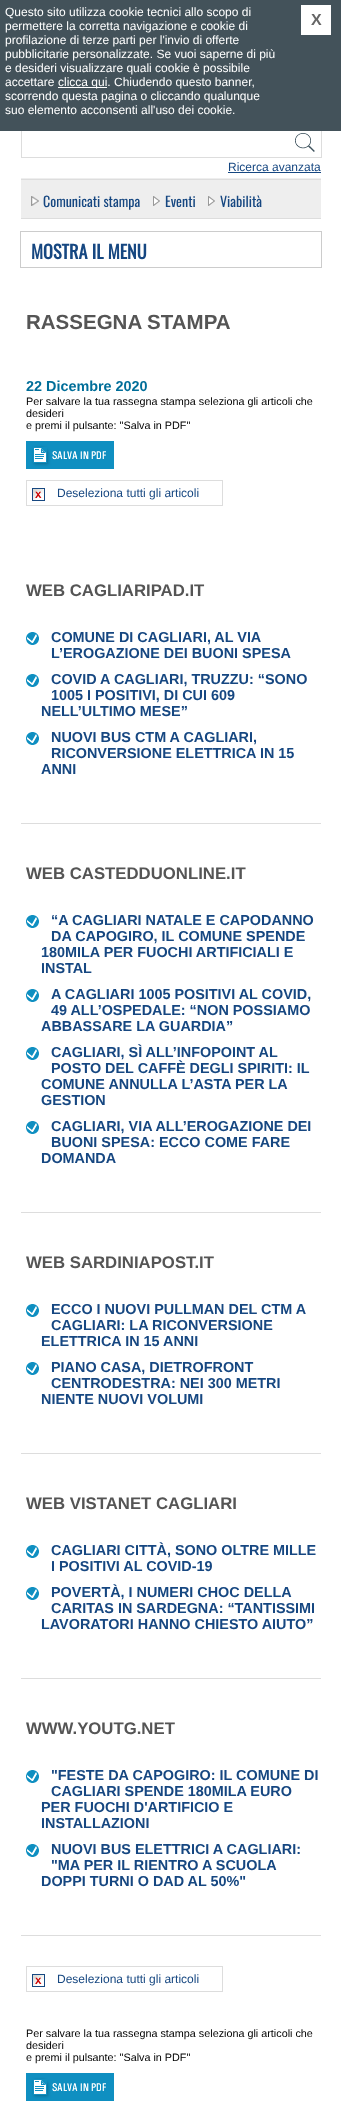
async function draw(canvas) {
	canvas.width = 341;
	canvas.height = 2110;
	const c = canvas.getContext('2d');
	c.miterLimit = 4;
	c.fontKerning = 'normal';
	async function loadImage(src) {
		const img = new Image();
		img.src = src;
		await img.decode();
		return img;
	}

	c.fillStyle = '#fff';
	c.fillRect(0, 0, 341, 2110);
	c.strokeStyle = '#ddd';
	c.strokeRect(21.5, 128.5, 300, 29);
	c.fillStyle = '#43525a';
	c.fillRect(0, 0, 341, 131);
	c.font = '12px Liberation Sans';
	c.fillStyle = '#fff';
	for (const [text, x, y] of [
		['Questo sito utilizza cookie tecnici allo scopo di', 5, 16],
		['permettere la corretta navigazione e cookie di', 5, 30],
		['profilazione di terze parti per l\'invio di offerte', 5, 44],
		['pubblicitarie personalizzate. Se vuoi saperne di più', 5, 58],
		['e desideri visualizzare quali cookie è possibile', 5, 72],
		['accettare', 5, 86],
	]) {
		c.fillText(text, x, y);
	}
	c.fillRect(58, 87, 49, 1);
	for (const [text, x, y] of [
		['clicca qui. Chiudendo questo banner,', 58, 86],
		['scorrendo questa pagina o cliccando qualunque', 5, 100],
		['suo elemento acconsenti all\'uso dei cookie.', 5, 114],
	]) {
		c.fillText(text, x, y);
	}
	c.fillRect(301, 5, 30, 30);
	c.font = 'bold 16px Liberation Sans';
	c.fillStyle = '#666';
	c.fillText('X', 311, 25);
	c.fillStyle = '#eee';
	c.fillRect(21, 178, 300, 1);
	c.drawImage(await loadImage('img1.png'), 295, 133, 20, 19);
	c.font = '12px Liberation Sans';
	c.fillStyle = '#164781';
	c.fillText('Ricerca avanzata', 228, 171);
	for (const [x, y, w, h, color] of [
		[228, 172, 93, 1, '#164781'],
		[21, 180, 300, 38, '#eee'],
		[21, 179, 300, 1, '#ddd'],
		[21, 218, 300, 1, '#ddd'],
	]) {
		c.fillStyle = color;
		c.fillRect(x, y, w, h);
	}
	c.drawImage(await loadImage('img2.png'), 31, 196, 8, 10);
	c.font = '14px Oswald';
	c.fillStyle = '#164781';
	c.fillText('Comunicati stampa', 43, 207);
	c.drawImage(await loadImage('img3.png'), 153, 196, 7, 10);
	c.fillText('Eventi', 165, 207);
	c.drawImage(await loadImage('img3.png'), 208, 196, 7, 10);
	c.fillText('Viabilità', 220, 207);
	c.strokeStyle = '#ccc';
	c.strokeRect(20.5, 231.5, 301, 36);
	c.font = 'bold 18.25px Oswald';
	c.fillText('MOSTRA IL MENU', 31, 259);
	c.font = 'bold 20.5px Liberation Sans';
	c.fillStyle = '#555';
	c.fillText('RASSEGNA STAMPA', 26, 329);
	c.font = 'bold 14.4px Liberation Sans';
	c.fillStyle = '#006e99';
	c.fillText('22 Dicembre 2020', 26, 391);
	c.font = '10.8px Liberation Sans';
	c.fillStyle = '#000';
	for (const [text, x, y] of [
		['Per salvare la tua rassegna stampa seleziona gli articoli che', 26, 405],
		['desideri', 26, 417],
		['e premi il pulsante: "Salva in PDF"', 26, 429],
	]) {
		c.fillText(text, x, y);
	}
	c.drawImage(await loadImage('img4.png'), 26, 441, 88, 28);
	c.drawImage(await loadImage('img5.png'), 34, 448, 73, 15);
	c.drawImage(await loadImage('img6.png'), 32, 488, 13, 13);
	c.strokeStyle = '#ddd';
	c.strokeRect(26.5, 480.5, 196, 25);
	c.font = '12px Liberation Sans';
	c.fillStyle = '#164781';
	c.fillText('Deseleziona tutti gli articoli', 57, 497);
	c.font = 'bold 16.75px Liberation Sans';
	c.fillStyle = '#555';
	c.fillText('WEB CAGLIARIPAD.IT', 26, 596);
	c.fillStyle = '#ddd';
	c.fillRect(21, 823, 300, 1);
	c.drawImage(await loadImage('img7.png'), 26, 632, 13, 13);
	c.font = 'bold 14.4px Liberation Sans';
	c.fillStyle = '#164781';
	c.fillText('COMUNE DI CAGLIARI, AL VIA', 51, 642);
	c.fillText('L’EROGAZIONE DEI BUONI SPESA', 51, 658);
	c.drawImage(await loadImage('img7.png'), 26, 674, 13, 13);
	for (const [text, x, y] of [
		['COVID A CAGLIARI, TRUZZU: “SONO', 51, 684],
		['1005 I POSITIVI, DI CUI 609', 51, 700],
		['NELL’ULTIMO MESE”', 41, 716],
	]) {
		c.fillText(text, x, y);
	}
	c.drawImage(await loadImage('img7.png'), 26, 732, 13, 13);
	for (const [text, x, y] of [
		['NUOVI BUS CTM A CAGLIARI,', 51, 742],
		['RICONVERSIONE ELETTRICA IN 15', 51, 758],
		['ANNI', 41, 774],
	]) {
		c.fillText(text, x, y);
	}
	c.font = 'bold 16.75px Liberation Sans';
	c.fillStyle = '#555';
	c.fillText('WEB CASTEDDUONLINE.IT', 26, 879);
	c.fillStyle = '#ddd';
	c.fillRect(21, 1212, 300, 1);
	c.drawImage(await loadImage('img7.png'), 26, 915, 13, 13);
	c.font = 'bold 14.4px Liberation Sans';
	c.fillStyle = '#164781';
	for (const [text, x, y] of [
		['“A CAGLIARI NATALE E CAPODANNO', 51, 925],
		['DA CAPOGIRO, IL COMUNE SPENDE', 51, 941],
		['180MILA PER FUOCHI ARTIFICIALI E', 41, 957],
		['INSTAL', 41, 973],
	]) {
		c.fillText(text, x, y);
	}
	c.drawImage(await loadImage('img7.png'), 26, 989, 13, 13);
	for (const [text, x, y] of [
		['A CAGLIARI 1005 POSITIVI AL COVID,', 51, 999],
		['49 ALL’OSPEDALE: “NON POSSIAMO', 51, 1015],
		['ABBASSARE LA GUARDIA”', 41, 1031],
	]) {
		c.fillText(text, x, y);
	}
	c.drawImage(await loadImage('img7.png'), 26, 1047, 13, 13);
	for (const [text, x, y] of [
		['CAGLIARI, SÌ ALL’INFOPOINT AL', 51, 1057],
		['POSTO DEL CAFFÈ DEGLI SPIRITI: IL', 51, 1073],
		['COMUNE ANNULLA L’ASTA PER LA', 41, 1089],
		['GESTION', 41, 1105],
	]) {
		c.fillText(text, x, y);
	}
	c.drawImage(await loadImage('img7.png'), 26, 1121, 13, 13);
	for (const [text, x, y] of [
		['CAGLIARI, VIA ALL’EROGAZIONE DEI', 51, 1131],
		['BUONI SPESA: ECCO COME FARE', 51, 1147],
		['DOMANDA', 41, 1163],
	]) {
		c.fillText(text, x, y);
	}
	c.font = 'bold 16.75px Liberation Sans';
	c.fillStyle = '#555';
	c.fillText('WEB SARDINIAPOST.IT', 26, 1268);
	c.fillStyle = '#ddd';
	c.fillRect(21, 1453, 300, 1);
	c.drawImage(await loadImage('img7.png'), 26, 1304, 13, 13);
	c.font = 'bold 14.4px Liberation Sans';
	c.fillStyle = '#164781';
	for (const [text, x, y] of [
		['ECCO I NUOVI PULLMAN DEL CTM A', 51, 1314],
		['CAGLIARI: LA RICONVERSIONE', 51, 1330],
		['ELETTRICA IN 15 ANNI', 41, 1346],
	]) {
		c.fillText(text, x, y);
	}
	c.drawImage(await loadImage('img7.png'), 26, 1362, 13, 13);
	for (const [text, x, y] of [
		['PIANO CASA, DIETROFRONT', 51, 1372],
		['CENTRODESTRA: NEI 300 METRI', 51, 1388],
		['NIENTE NUOVI VOLUMI', 41, 1404],
	]) {
		c.fillText(text, x, y);
	}
	c.font = 'bold 16.75px Liberation Sans';
	c.fillStyle = '#555';
	c.fillText('WEB VISTANET CAGLIARI', 26, 1509);
	c.fillStyle = '#ddd';
	c.fillRect(21, 1678, 300, 1);
	c.drawImage(await loadImage('img7.png'), 26, 1545, 13, 13);
	c.font = 'bold 14.4px Liberation Sans';
	c.fillStyle = '#164781';
	c.fillText('CAGLIARI CITTÀ, SONO OLTRE MILLE', 51, 1555);
	c.fillText('I POSITIVI AL COVID-19', 51, 1571);
	c.drawImage(await loadImage('img7.png'), 26, 1587, 13, 13);
	for (const [text, x, y] of [
		['POVERTÀ, I NUMERI CHOC DELLA', 51, 1597],
		['CARITAS IN SARDEGNA: “TANTISSIMI', 51, 1613],
		['LAVORATORI HANNO CHIESTO AIUTO”', 41, 1629],
	]) {
		c.fillText(text, x, y);
	}
	c.font = 'bold 16.75px Liberation Sans';
	c.fillStyle = '#555';
	c.fillText('WWW.YOUTG.NET', 26, 1734);
	c.fillStyle = '#ddd';
	c.fillRect(21, 1935, 300, 1);
	c.drawImage(await loadImage('img7.png'), 26, 1770, 13, 13);
	c.font = 'bold 14.4px Liberation Sans';
	c.fillStyle = '#164781';
	for (const [text, x, y] of [
		['"FESTE DA CAPOGIRO: IL COMUNE DI', 51, 1780],
		['CAGLIARI SPENDE 180MILA EURO', 51, 1796],
		['PER FUOCHI D\'ARTIFICIO E', 41, 1812],
		['INSTALLAZIONI', 41, 1828],
	]) {
		c.fillText(text, x, y);
	}
	c.drawImage(await loadImage('img7.png'), 26, 1844, 13, 13);
	for (const [text, x, y] of [
		['NUOVI BUS ELETTRICI A CAGLIARI:', 51, 1854],
		['"MA PER IL RIENTRO A SCUOLA', 51, 1870],
		['DOPPI TURNI O DAD AL 50%"', 41, 1886],
	]) {
		c.fillText(text, x, y);
	}
	c.drawImage(await loadImage('img6.png'), 32, 1974, 13, 13);
	c.strokeRect(26.5, 1966.5, 196, 25);
	c.font = '12px Liberation Sans';
	c.fillText('Deseleziona tutti gli articoli', 57, 1983);
	c.font = '10.8px Liberation Sans';
	c.fillStyle = '#000';
	for (const [text, x, y] of [
		['Per salvare la tua rassegna stampa seleziona gli articoli che', 26, 2037],
		['desideri', 26, 2049],
		['e premi il pulsante: "Salva in PDF"', 26, 2061],
	]) {
		c.fillText(text, x, y);
	}
	c.drawImage(await loadImage('img4.png'), 26, 2073, 88, 28);
	c.drawImage(await loadImage('img5.png'), 34, 2080, 73, 15);
}

draw(document.querySelector('canvas'));
